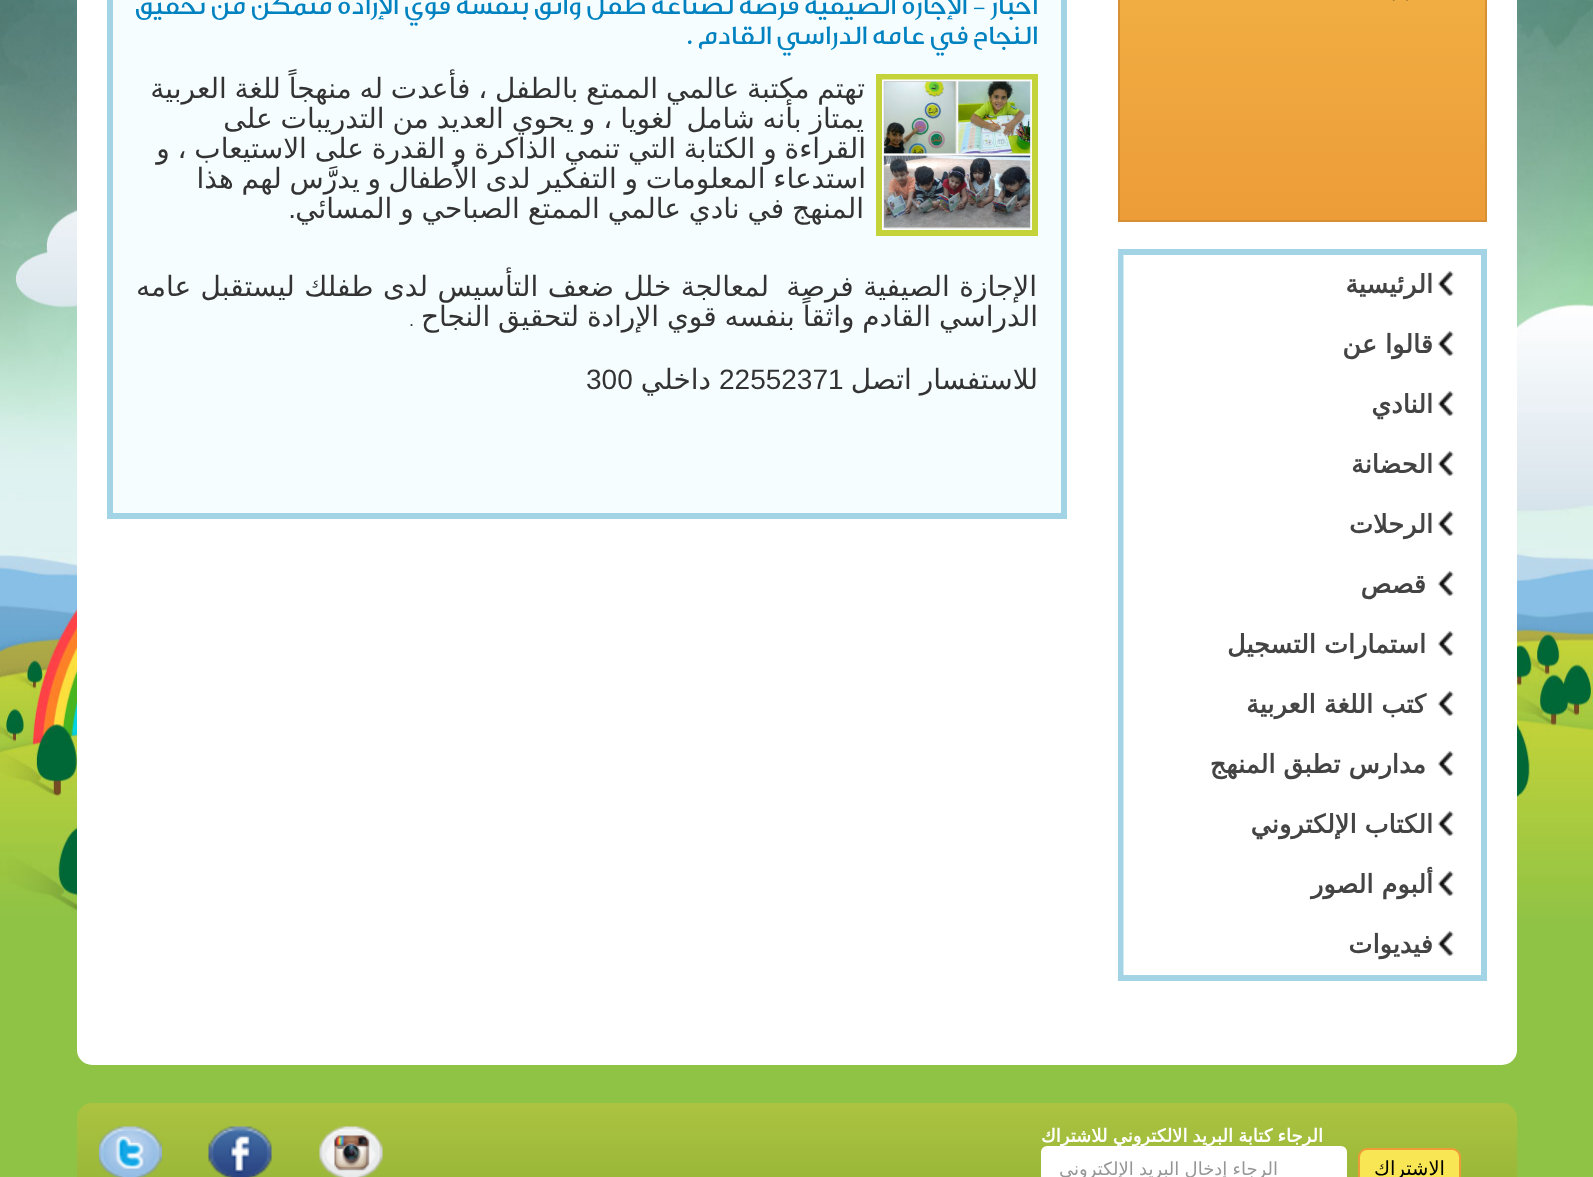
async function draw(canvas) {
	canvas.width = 1593;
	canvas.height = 1177;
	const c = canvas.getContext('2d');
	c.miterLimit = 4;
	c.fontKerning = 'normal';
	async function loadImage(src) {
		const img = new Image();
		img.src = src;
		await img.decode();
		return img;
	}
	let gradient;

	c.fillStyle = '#fff';
	c.fillRect(0, 0, 1593, 1177);
	c.drawImage(await loadImage('img1.png'), 0, 0, 1593, 1177);
	c.beginPath();
	c.roundRect(77, -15, 1440, 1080, 15);
	c.fill();
	c.fillStyle = '#f6fdff';
	c.beginPath();
	c.rect(110, -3, 954, 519);
	c.fill();
	c.strokeStyle = '#a3d4e6';
	c.lineWidth = 6;
	c.stroke();
	c.wordSpacing = '0.4px';
	c.direction = 'rtl';
	c.font = '500 27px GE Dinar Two';
	c.fillStyle = '#0082c0';
	c.fillText('أخبار - الإجازة الصيفية فرصة لصناعة طفل واثق بنفسه قوي الإرادة متمكن من تحقيق', 1038, 14);
	c.wordSpacing = '0px';
	c.fillText('النجاح في عامه الدراسي القادم .', 1038, 44);
	c.strokeStyle = '#c3d339';
	c.strokeRect(879, 77, 156, 156);
	c.drawImage(await loadImage('img2.png'), 882, 79, 150, 151);
	c.wordSpacing = '-1.1px';
	c.font = '28px DejaVu Sans';
	c.fillStyle = '#333';
	c.fillText('تهتم مكتبة عالمي الممتع بالطفل ، فأعدت له منهجاً للغة العربية', 865, 98);
	c.wordSpacing = '-1px';
	c.fillText('يمتاز بأنه شامل', 864, 128);
	c.fillText('لغويا ، و يحوي العديد من التدريبات على', 673, 128);
	c.wordSpacing = '-1.1px';
	for (const [text, x, y] of [
		['القراءة و الكتابة التي تنمي الذاكرة و القدرة على الاستيعاب ، و', 866, 158],
		['استدعاء المعلومات و التفكير لدى الأطفال', 866, 188],
		['و يدرَّس لهم هذا', 381, 188],
	]) {
		c.fillText(text, x, y);
	}
	c.wordSpacing = '-1px';
	c.fillText('المنهج في نادي عالمي الممتع الصباحي و المسائي', 864, 218);
	c.wordSpacing = '0px';
	c.font = '28px Liberation Sans';
	c.fillText('.', 296, 218);
	c.wordSpacing = '0.5px';
	c.font = '28px DejaVu Sans';
	c.fillText('الإجازة الصيفية فرصة', 1037, 296);
	c.fillText('لمعالجة خلل ضعف التأسيس لدى طفلك ليستقبل عامه', 769, 296);
	c.wordSpacing = '-1.1px';
	c.fillText('الدراسي القادم واثقاً بنفسه قوي الإرادة لتحقيق النجاح', 1038, 326);
	c.wordSpacing = '0px';
	c.direction = 'ltr';
	c.font = '18px Liberation Sans';
	c.fillText('.', 409, 326);
	c.wordSpacing = '-1.1px';
	c.direction = 'rtl';
	c.font = '28px DejaVu Sans';
	c.fillText('للاستفسار اتصل', 1038, 389);
	c.wordSpacing = '0px';
	c.direction = 'ltr';
	c.font = '28px Liberation Sans';
	c.fillText('22552371', 719, 389);
	c.direction = 'rtl';
	c.font = '28px DejaVu Sans';
	c.fillText('داخلي', 711, 389);
	c.direction = 'ltr';
	c.font = '28px Liberation Sans';
	c.fillText('300', 586, 389);
	gradient = c.createLinearGradient(1302, -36, 1302, 221);
	gradient.addColorStop(0, '#f1b043');
	gradient.addColorStop(1, '#ed9c38');
	c.fillStyle = gradient;
	c.fillRect(1120, 0, 365, 220);
	c.strokeStyle = '#d68f33';
	c.lineWidth = 2;
	c.strokeRect(1119, -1, 367, 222);
	c.drawImage(await loadImage('img3.png'), 1392, 0, 17, 1);
	c.strokeStyle = '#a3d4e6';
	c.lineWidth = 6;
	c.strokeRect(1121, 252, 363, 726);
	c.drawImage(await loadImage('img4.png'), 1123, 255, 331, 60);
	c.direction = 'rtl';
	c.font = 'bold 25.5px DejaVu Sans';
	c.fillStyle = '#444';
	c.fillText('الرئيسية', 1433, 293);
	c.drawImage(await loadImage('img4.png'), 1123, 315, 331, 60);
	c.fillText('قالوا عن', 1433, 353);
	c.drawImage(await loadImage('img4.png'), 1123, 375, 331, 60);
	c.fillText('النادي', 1433, 413);
	c.drawImage(await loadImage('img4.png'), 1123, 435, 331, 60);
	c.fillText('الحضانة', 1433, 473);
	c.drawImage(await loadImage('img4.png'), 1123, 495, 331, 60);
	c.fillText('الرحلات', 1433, 533);
	c.drawImage(await loadImage('img4.png'), 1123, 555, 331, 60);
	c.fillText('قصص', 1426, 593);
	c.drawImage(await loadImage('img4.png'), 1123, 615, 331, 60);
	c.fillText('استمارات التسجيل', 1426, 653);
	c.drawImage(await loadImage('img4.png'), 1123, 675, 331, 60);
	c.fillText('كتب اللغة العربية', 1426, 713);
	c.drawImage(await loadImage('img4.png'), 1123, 735, 331, 60);
	c.fillText('مدارس تطبق المنهج', 1426, 773);
	c.drawImage(await loadImage('img4.png'), 1123, 795, 331, 60);
	c.fillText('الكتاب الإلكتروني', 1433, 833);
	c.drawImage(await loadImage('img4.png'), 1123, 855, 331, 60);
	c.fillText('ألبوم الصور', 1433, 893);
	c.drawImage(await loadImage('img4.png'), 1123, 915, 331, 60);
	c.fillText('فيديوات', 1433, 953);
	gradient = c.createLinearGradient(797, 1103, 797, 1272);
	gradient.addColorStop(0, '#abc340');
	gradient.addColorStop(1, '#88aa31');
	c.fillStyle = gradient;
	c.beginPath();
	c.roundRect(77, 1103, 1440, 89, 15);
	c.fill();
	c.wordSpacing = '-0.5px';
	c.font = 'bold 18px DejaVu Sans';
	c.fillStyle = '#fff';
	c.fillText('الرجاء كتابة البريد الالكتروني للاشتراك', 1323, 1142);
	c.drawImage(await loadImage('img5.png'), 319, 1126, 64, 51);
	c.drawImage(await loadImage('img6.png'), 208, 1126, 64, 51);
	c.drawImage(await loadImage('img7.png'), 99, 1126, 63, 51);
	c.fillStyle = '#f9e655';
	c.beginPath();
	c.roundRect(1359, 1149, 101, 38, 8);
	c.fill();
	c.strokeStyle = '#ed9c38';
	c.lineWidth = 2;
	c.stroke();
	c.wordSpacing = '0px';
	c.font = '19.5px DejaVu Sans';
	c.fillStyle = '#000';
	c.fillText('الاشتراك', 1445, 1175);
	c.fillStyle = '#fff';
	c.beginPath();
	c.roundRect(1041, 1146, 306, 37, 6);
	c.fill();
	c.wordSpacing = '-0.5px';
	c.font = '18px DejaVu Sans';
	c.fillStyle = '#969696';
	c.fillText('الرجاء إدخال البريد الإلكتروني', 1278, 1175);
}

draw(document.querySelector('canvas'));
